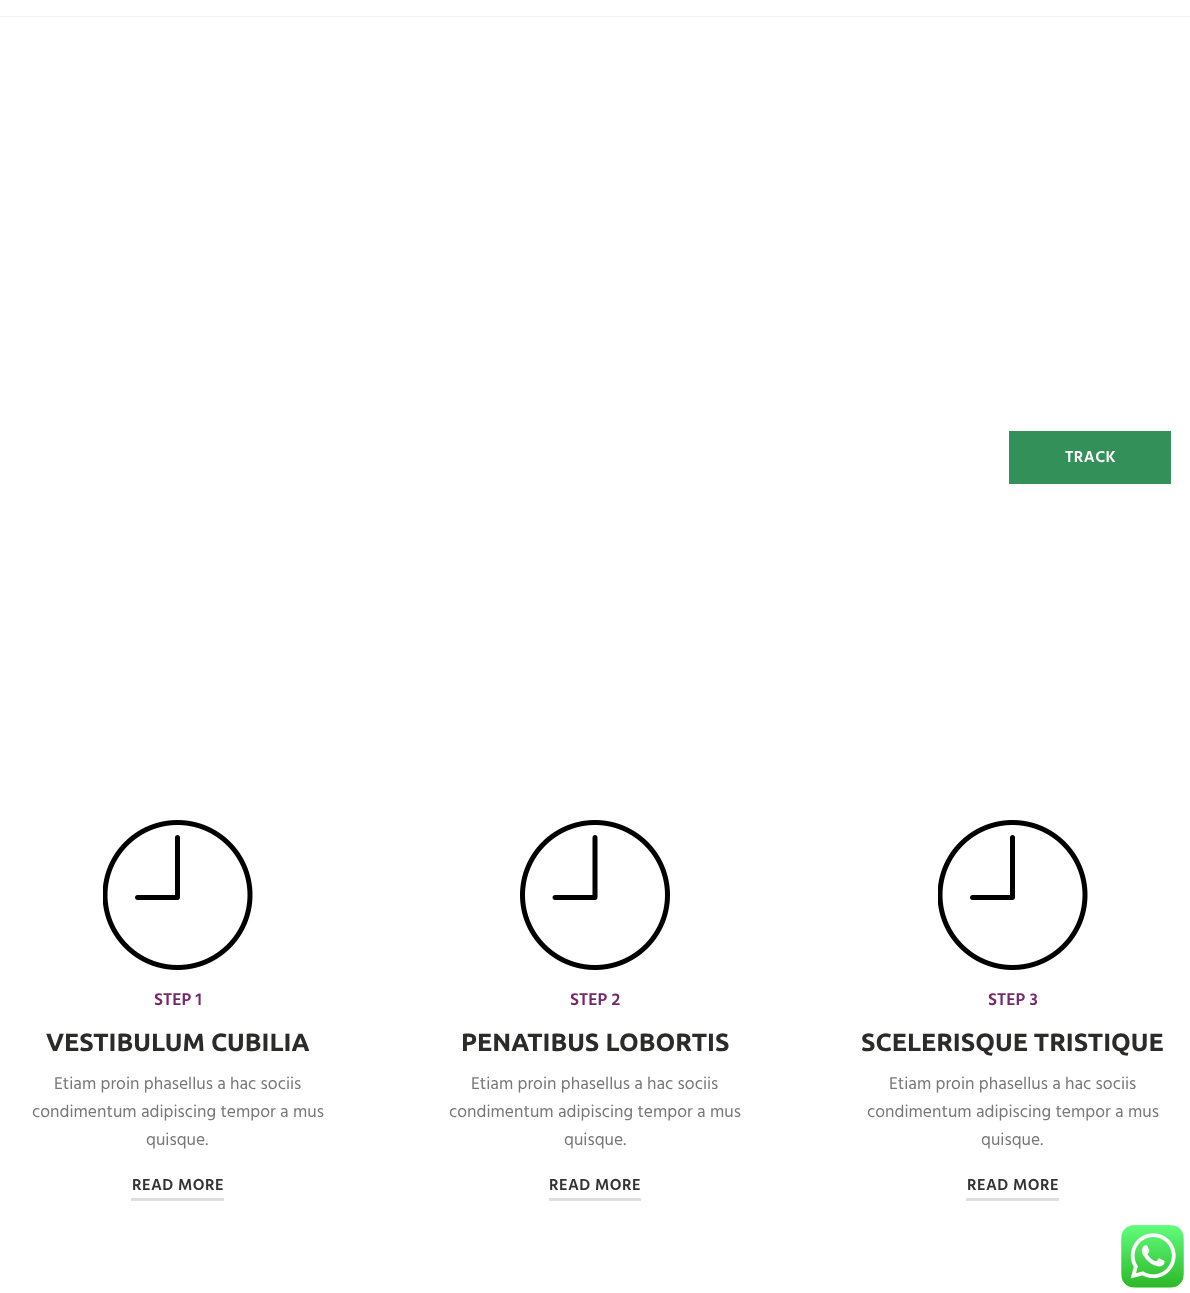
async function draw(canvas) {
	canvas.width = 1190;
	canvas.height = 1293;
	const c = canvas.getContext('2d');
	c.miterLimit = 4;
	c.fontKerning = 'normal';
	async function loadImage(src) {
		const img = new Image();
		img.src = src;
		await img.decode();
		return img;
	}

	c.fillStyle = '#fff';
	c.fillRect(0, 0, 1190, 1293);
	c.fillStyle = '#f1f1f1';
	c.fillRect(0, 16, 1190, 1);
	c.fillStyle = '#339059';
	c.fillRect(1009, 431, 162, 53);
	c.letterSpacing = '0.4px';
	c.font = '600 16.25px Hind';
	c.fillStyle = '#fff';
	c.fillText('TRACK', 1065, 462);
	c.drawImage(await loadImage('img1.png'), 103, 820, 150, 150);
	c.letterSpacing = '0px';
	c.font = '600 17.5px Hind';
	c.fillStyle = '#742969';
	c.fillText('STEP 1', 154, 1005);
	c.font = 'bold 25px Ubuntu';
	c.fillStyle = '#2d2a2a';
	c.fillText('VESTIBULUM CUBILIA', 46, 1051);
	c.font = '17.5px Hind';
	c.fillStyle = '#777';
	for (const [text, x, y] of [
		['Etiam proin phasellus a hac sociis', 54, 1089],
		['condimentum adipiscing tempor a mus', 32, 1117],
		['quisque.', 146, 1145],
	]) {
		c.fillText(text, x, y);
	}
	c.fillStyle = '#dfdfdf';
	c.fillRect(131, 1198, 93, 3);
	c.letterSpacing = '0.4px';
	c.font = '600 16.25px Hind';
	c.fillStyle = '#333';
	c.fillText('READ MORE', 132, 1190);
	c.drawImage(await loadImage('img2.png'), 520, 820, 150, 150);
	c.letterSpacing = '0px';
	c.font = '600 17.5px Hind';
	c.fillStyle = '#742969';
	c.fillText('STEP 2', 570, 1005);
	c.font = 'bold 25px Ubuntu';
	c.fillStyle = '#2d2a2a';
	c.fillText('PENATIBUS LOBORTIS', 461, 1051);
	c.font = '17.5px Hind';
	c.fillStyle = '#777';
	for (const [text, x, y] of [
		['Etiam proin phasellus a hac sociis', 471, 1089],
		['condimentum adipiscing tempor a mus', 449, 1117],
		['quisque.', 564, 1145],
	]) {
		c.fillText(text, x, y);
	}
	c.fillStyle = '#dfdfdf';
	c.fillRect(549, 1198, 92, 3);
	c.letterSpacing = '0.4px';
	c.font = '600 16.25px Hind';
	c.fillStyle = '#333';
	c.fillText('READ MORE', 549, 1190);
	c.drawImage(await loadImage('img1.png'), 938, 820, 150, 150);
	c.letterSpacing = '0px';
	c.font = '600 17.5px Hind';
	c.fillStyle = '#742969';
	c.fillText('STEP 3', 988, 1005);
	c.font = 'bold 25px Ubuntu';
	c.fillStyle = '#2d2a2a';
	c.fillText('SCELERISQUE TRISTIQUE', 861, 1051);
	c.font = '17.5px Hind';
	c.fillStyle = '#777';
	for (const [text, x, y] of [
		['Etiam proin phasellus a hac sociis', 889, 1089],
		['condimentum adipiscing tempor a mus', 867, 1117],
		['quisque.', 981, 1145],
	]) {
		c.fillText(text, x, y);
	}
	c.fillStyle = '#dfdfdf';
	c.fillRect(966, 1198, 93, 3);
	c.letterSpacing = '0.4px';
	c.font = '600 16.25px Hind';
	c.fillStyle = '#333';
	c.fillText('READ MORE', 967, 1190);
	c.drawImage(await loadImage('img3.png'), 1121, 1225, 63, 63);
}

draw(document.querySelector('canvas'));
